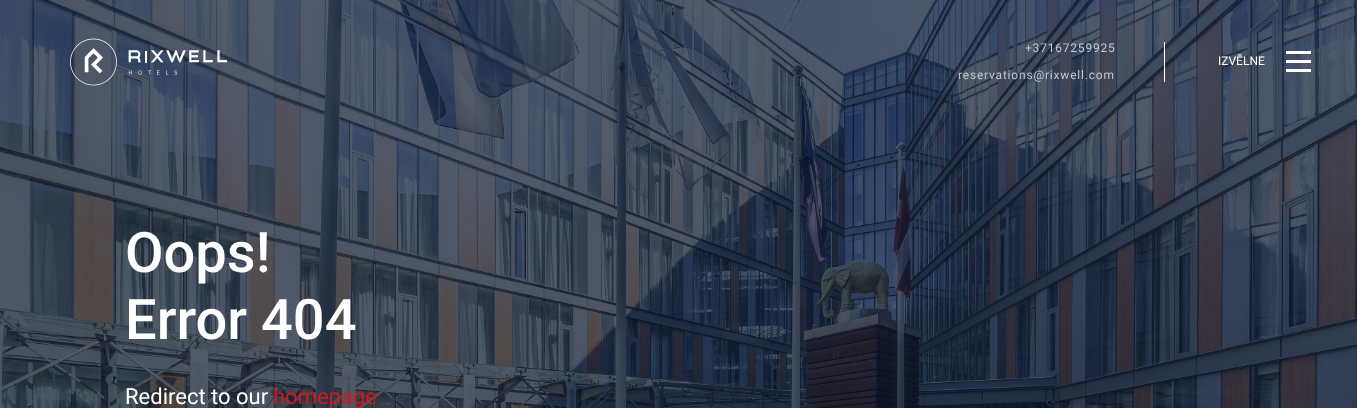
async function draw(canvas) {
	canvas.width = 1357;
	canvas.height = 408;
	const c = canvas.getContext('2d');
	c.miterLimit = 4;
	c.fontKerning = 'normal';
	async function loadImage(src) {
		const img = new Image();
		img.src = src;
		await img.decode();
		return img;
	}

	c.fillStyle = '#fff';
	c.fillRect(0, 0, 1357, 408);
	c.drawImage(await loadImage('img2.png'), 0, 0, 1357, 408);
	c.drawImage(await loadImage('img1.png'), 70, 38, 157, 48);
	c.letterSpacing = '0.8px';
	c.font = '12px Roboto';
	c.fillStyle = '#c5c8ce';
	c.fillText('+37167259925', 1025, 52);
	c.fillText('reservations@rixwell.com', 958, 79);
	c.fillStyle = '#fff';
	c.fillRect(1164, 42, 1, 40);
	c.letterSpacing = '0px';
	c.fillText('IZVĒLNE', 1218, 65);
	for (const [x, y, w, h, color] of [
		[1286, 51, 25, 3, '#fff'],
		[1286, 60, 25, 3, '#fff'],
		[1286, 69, 25, 3, '#fff'],
	]) {
		c.fillStyle = color;
		c.fillRect(x, y, w, h);
	}
	c.font = '500 56px Roboto';
	c.fillText('Oops!', 125, 272);
	c.fillText('Error 404', 125, 339);
	c.font = '22px Roboto';
	c.fillText('Redirect to our', 125, 404);
	c.fillStyle = '#d7141d';
	c.fillText('homepage', 273, 404);
}

draw(document.querySelector('canvas'));
